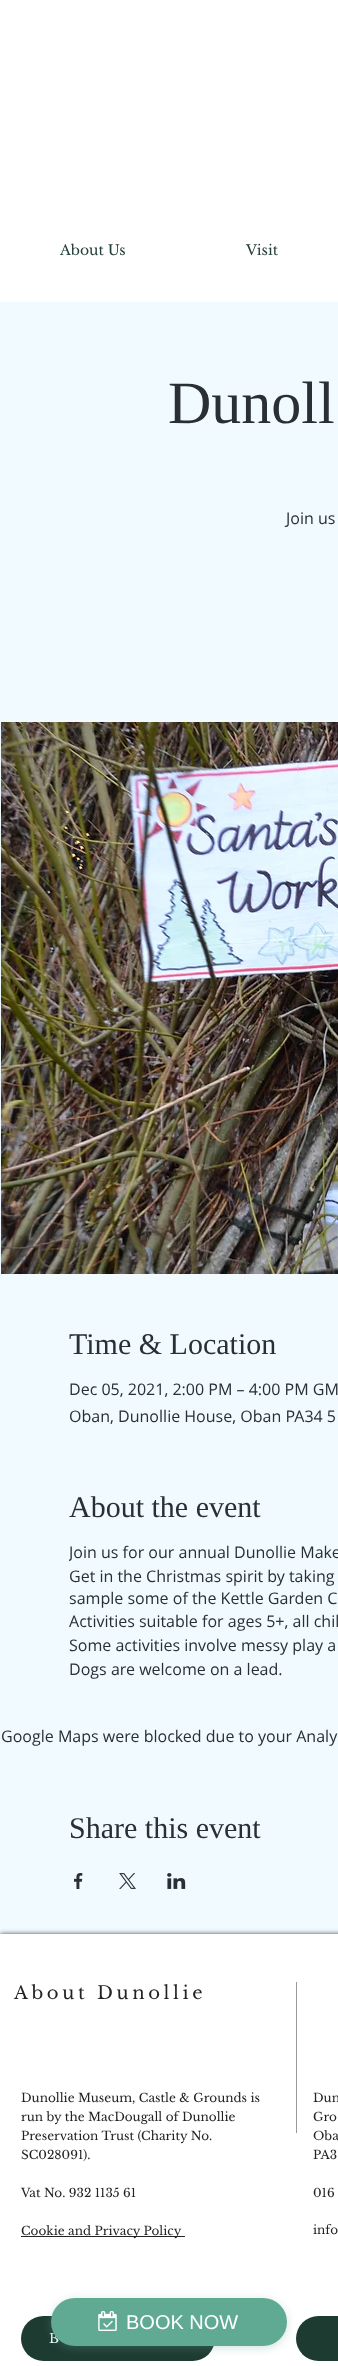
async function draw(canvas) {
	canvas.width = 338;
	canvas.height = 2366;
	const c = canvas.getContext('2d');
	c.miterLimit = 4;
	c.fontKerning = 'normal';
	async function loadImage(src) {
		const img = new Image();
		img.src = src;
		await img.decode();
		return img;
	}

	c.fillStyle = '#fff';
	c.fillRect(0, 0, 338, 2366);
	c.font = '14px Libre Baskerville';
	c.fillStyle = '#243e3a';
	c.fillText('About Us', 60, 255);
	c.fillText('Visit', 246, 255);
	c.fillStyle = '#f0faff';
	c.fillRect(0, 302, 338, 1632);
	c.font = '60px Liberation Serif';
	c.fillStyle = '#292f33';
	c.fillText('Dunoll', 168, 423);
	c.font = '16px Open Sans';
	c.fillText('Join us', 286, 524);
	c.drawImage(await loadImage('img1.png'), 1, 722, 337, 552);
	c.font = '30px Liberation Serif';
	c.fillText('Time & Location', 69, 1354);
	c.font = '16px Open Sans';
	c.fillText('Dec 05, 2021, 2:00 PM – 4:00 PM GM', 69, 1395);
	c.fillText('Oban, Dunollie House, Oban PA34 5', 69, 1422);
	c.font = '30px Liberation Serif';
	c.fillText('About the event', 69, 1517);
	c.save();
	c.beginPath();
	c.rect(69, 1541, 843, 141);
	c.clip();
	c.font = '16px Open Sans';
	c.fillText('Join us for our annual Dunollie Make', 69, 1558);
	c.restore();
	c.font = '16px Open Sans';
	for (const [text, x, y] of [
		['Get in the Christmas spirit by taking', 69, 1582],
		['sample some of the Kettle Garden C', 69, 1604],
		['Activities suitable for ages 5+, all chil', 69, 1627],
		['Some activities involve messy play a', 69, 1651],
		['Dogs are welcome on a lead.', 69, 1675],
		['Google Maps were blocked due to your Analy', 1, 1742],
	]) {
		c.fillText(text, x, y);
	}
	c.font = '30px Liberation Serif';
	c.fillText('Share this event', 69, 1838);
	c.drawImage(await loadImage('img2.png'), 74, 1873, 9, 16);
	c.drawImage(await loadImage('img3.png'), 119, 1873, 17, 16);
	c.drawImage(await loadImage('img4.png'), 167, 1873, 19, 16);
	c.fillStyle = '#000000b3';
	c.filter = 'blur(2.5px)';
	c.beginPath();
	c.rect(0, 1934, 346, 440);
	c.fill();
	c.filter = 'none';
	c.fillStyle = '#fff';
	c.fillRect(0, 1934, 338, 432);
	c.letterSpacing = '3.6px';
	c.font = '18px Libre Baskerville';
	c.fillStyle = '#242323';
	c.fillText('About Dunollie', 14, 1999);
	c.fillStyle = '#999';
	c.fillRect(296, 1982, 1, 151);
	c.letterSpacing = '0px';
	c.font = '12px Libre Baskerville';
	c.fillStyle = '#242323';
	for (const [text, x, y] of [
		['Dunollie Museum, Castle & Grounds is', 21, 2102],
		['run by the MacDougall of Dunollie', 21, 2121],
		['Preservation Trust (Charity No.', 21, 2140],
		['SC028091).', 21, 2159],
		['Vat No. 932 1135 61', 21, 2197],
	]) {
		c.fillText(text, x, y);
	}
	c.fillRect(21, 2236, 164, 1);
	for (const [text, x, y] of [
		['Cookie and Privacy Policy', 21, 2235],
		['Dun', 313, 2102],
		['Gro', 313, 2121],
		['Oba', 313, 2140],
		['PA3', 313, 2159],
		['016', 313, 2197],
		['info', 313, 2234],
	]) {
		c.fillText(text, x, y);
	}
	c.fillStyle = '#1e3b32';
	c.beginPath();
	c.roundRect(21, 2316, 194, 45, 22.5);
	c.fill();
	c.letterSpacing = '3px';
	c.font = '13px Libre Baskerville';
	c.fillStyle = '#f0faff';
	c.fillText('B', 49, 2343);
	c.fillStyle = '#1e3b32';
	c.beginPath();
	c.roundRect(296, 2316, 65, 45, 22.5);
	c.fill();
	c.fillStyle = '#60aa934d';
	c.filter = 'blur(5px)';
	c.beginPath();
	c.roundRect(51, 2300, 236, 48, 24);
	c.fill();
	c.filter = 'none';
	c.fillStyle = '#60aa93';
	c.beginPath();
	c.roundRect(51, 2298, 236, 48, 24);
	c.fill();
	c.drawImage(await loadImage('img5.png'), 98, 2311, 19, 20);
	c.letterSpacing = '0px';
	c.font = '20px Liberation Sans';
	c.fillStyle = '#fff';
	c.fillText('BOOK NOW', 126, 2329);
}

draw(document.querySelector('canvas'));
